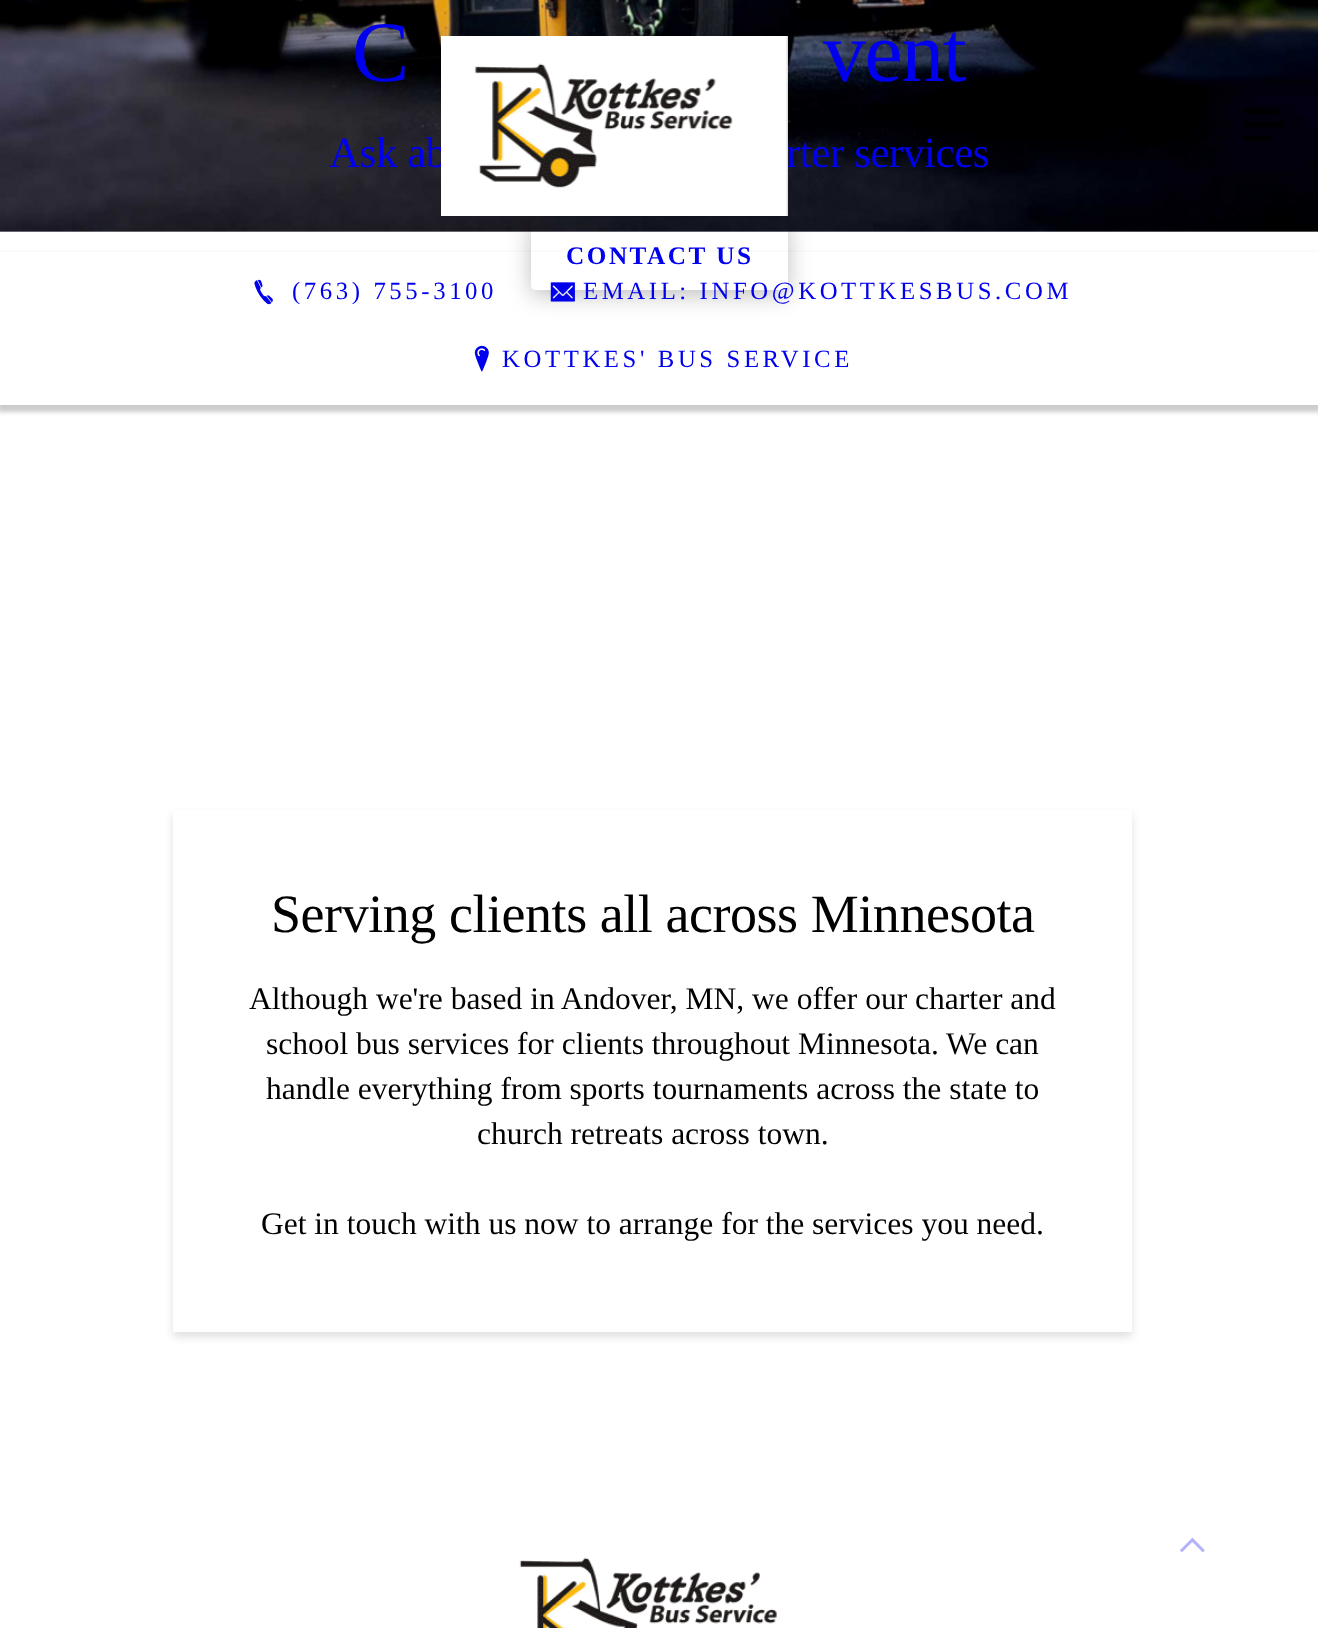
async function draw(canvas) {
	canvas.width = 1318;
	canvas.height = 1628;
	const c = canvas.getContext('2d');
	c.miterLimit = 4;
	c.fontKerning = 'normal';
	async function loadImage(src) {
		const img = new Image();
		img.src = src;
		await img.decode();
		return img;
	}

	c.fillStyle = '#fff';
	c.fillRect(0, 0, 1318, 1628);
	c.drawImage(await loadImage('img1.png'), 0, 0, 1318, 232);
	c.letterSpacing = '-1.5px';
	c.font = '86px Liberation Serif';
	c.fillStyle = '#00e';
	c.fillText('C', 352, 81);
	c.fillText('vent', 823, 81);
	c.letterSpacing = '-0.45px';
	c.font = '43px Liberation Serif';
	c.fillText('Ask ab', 329, 167);
	c.fillText('rter services', 786, 167);
	c.save();
	c.beginPath();
	c.moveTo(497, 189);
	c.lineTo(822, 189);
	c.lineTo(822, 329);
	c.lineTo(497, 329);
	c.closePath();
	c.moveTo(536, 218);
	c.lineTo(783, 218);
	c.bezierCurveTo(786, 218, 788, 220, 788, 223);
	c.lineTo(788, 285);
	c.bezierCurveTo(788, 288, 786, 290, 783, 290);
	c.lineTo(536, 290);
	c.bezierCurveTo(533, 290, 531, 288, 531, 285);
	c.lineTo(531, 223);
	c.bezierCurveTo(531, 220, 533, 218, 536, 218);
	c.closePath();
	c.clip('evenodd');
	c.fillStyle = '#00000040';
	c.filter = 'blur(11px)';
	c.beginPath();
	c.roundRect(531, 223, 257, 72, 5);
	c.fill();
	c.filter = 'none';
	c.restore();
	c.letterSpacing = '2.5px';
	c.font = 'bold 25.25px Liberation Serif';
	c.fillText('CONTACT US', 566, 264);
	c.save();
	c.beginPath();
	c.moveTo(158, 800);
	c.lineTo(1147, 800);
	c.lineTo(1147, 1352);
	c.lineTo(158, 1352);
	c.closePath();
	c.moveTo(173, 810);
	c.lineTo(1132, 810);
	c.lineTo(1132, 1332);
	c.lineTo(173, 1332);
	c.closePath();
	c.clip('evenodd');
	c.fillStyle = '#0000001f';
	c.filter = 'blur(4.5px)';
	c.beginPath();
	c.rect(173, 815, 959, 522);
	c.fill();
	c.filter = 'none';
	c.restore();
	c.letterSpacing = '-0.45px';
	c.font = '54px Liberation Serif';
	c.fillStyle = '#000';
	c.fillText('Serving clients all across Minnesota', 271, 932);
	c.letterSpacing = '0px';
	c.font = '31.5px Liberation Serif';
	for (const [text, x, y] of [
		['Although we\'re based in Andover, MN, we offer our charter and', 249, 1009],
		['school bus services for clients throughout Minnesota. We can', 266, 1054],
		['handle everything from sports tournaments across the state to', 266, 1099],
		['church retreats across town.', 477, 1144],
		['Get in touch with us now to arrange for the services you need.', 261, 1234],
	]) {
		c.fillText(text, x, y);
	}
	c.drawImage(await loadImage('img2.png'), 441, 36, 347, 180);
	c.drawImage(await loadImage('img3.png'), 1244, 108, 41, 33);
	c.save();
	c.beginPath();
	c.moveTo(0, 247);
	c.lineTo(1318, 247);
	c.lineTo(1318, 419);
	c.lineTo(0, 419);
	c.closePath();
	c.moveTo(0, 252);
	c.lineTo(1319, 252);
	c.lineTo(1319, 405);
	c.lineTo(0, 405);
	c.closePath();
	c.clip('evenodd');
	c.fillStyle = '#00000033';
	c.filter = 'blur(2px)';
	c.beginPath();
	c.rect(-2, 254, 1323, 158);
	c.fill();
	c.filter = 'none';
	c.restore();
	c.drawImage(await loadImage('img4.png'), 254, 279, 19, 26);
	c.letterSpacing = '3.6px';
	c.font = '24.75px Liberation Serif';
	c.fillStyle = '#00e';
	c.fillText('(763) 755-3100', 292, 299);
	c.drawImage(await loadImage('img5.png'), 550, 282, 25, 20);
	c.fillText('EMAIL: INFO@KOTTKESBUS.COM', 583, 299);
	c.drawImage(await loadImage('img6.png'), 474, 345, 15, 27);
	c.fillText('KOTTKES\' BUS SERVICE', 502, 367);
	c.drawImage(await loadImage('img7.png'), 519, 1557, 258, 71);
	c.letterSpacing = '0px';
	c.font = '32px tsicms';
	c.fillStyle = '#b3b3fa';
	c.fillText('+', 1180, 1558);
}

draw(document.querySelector('canvas'));
